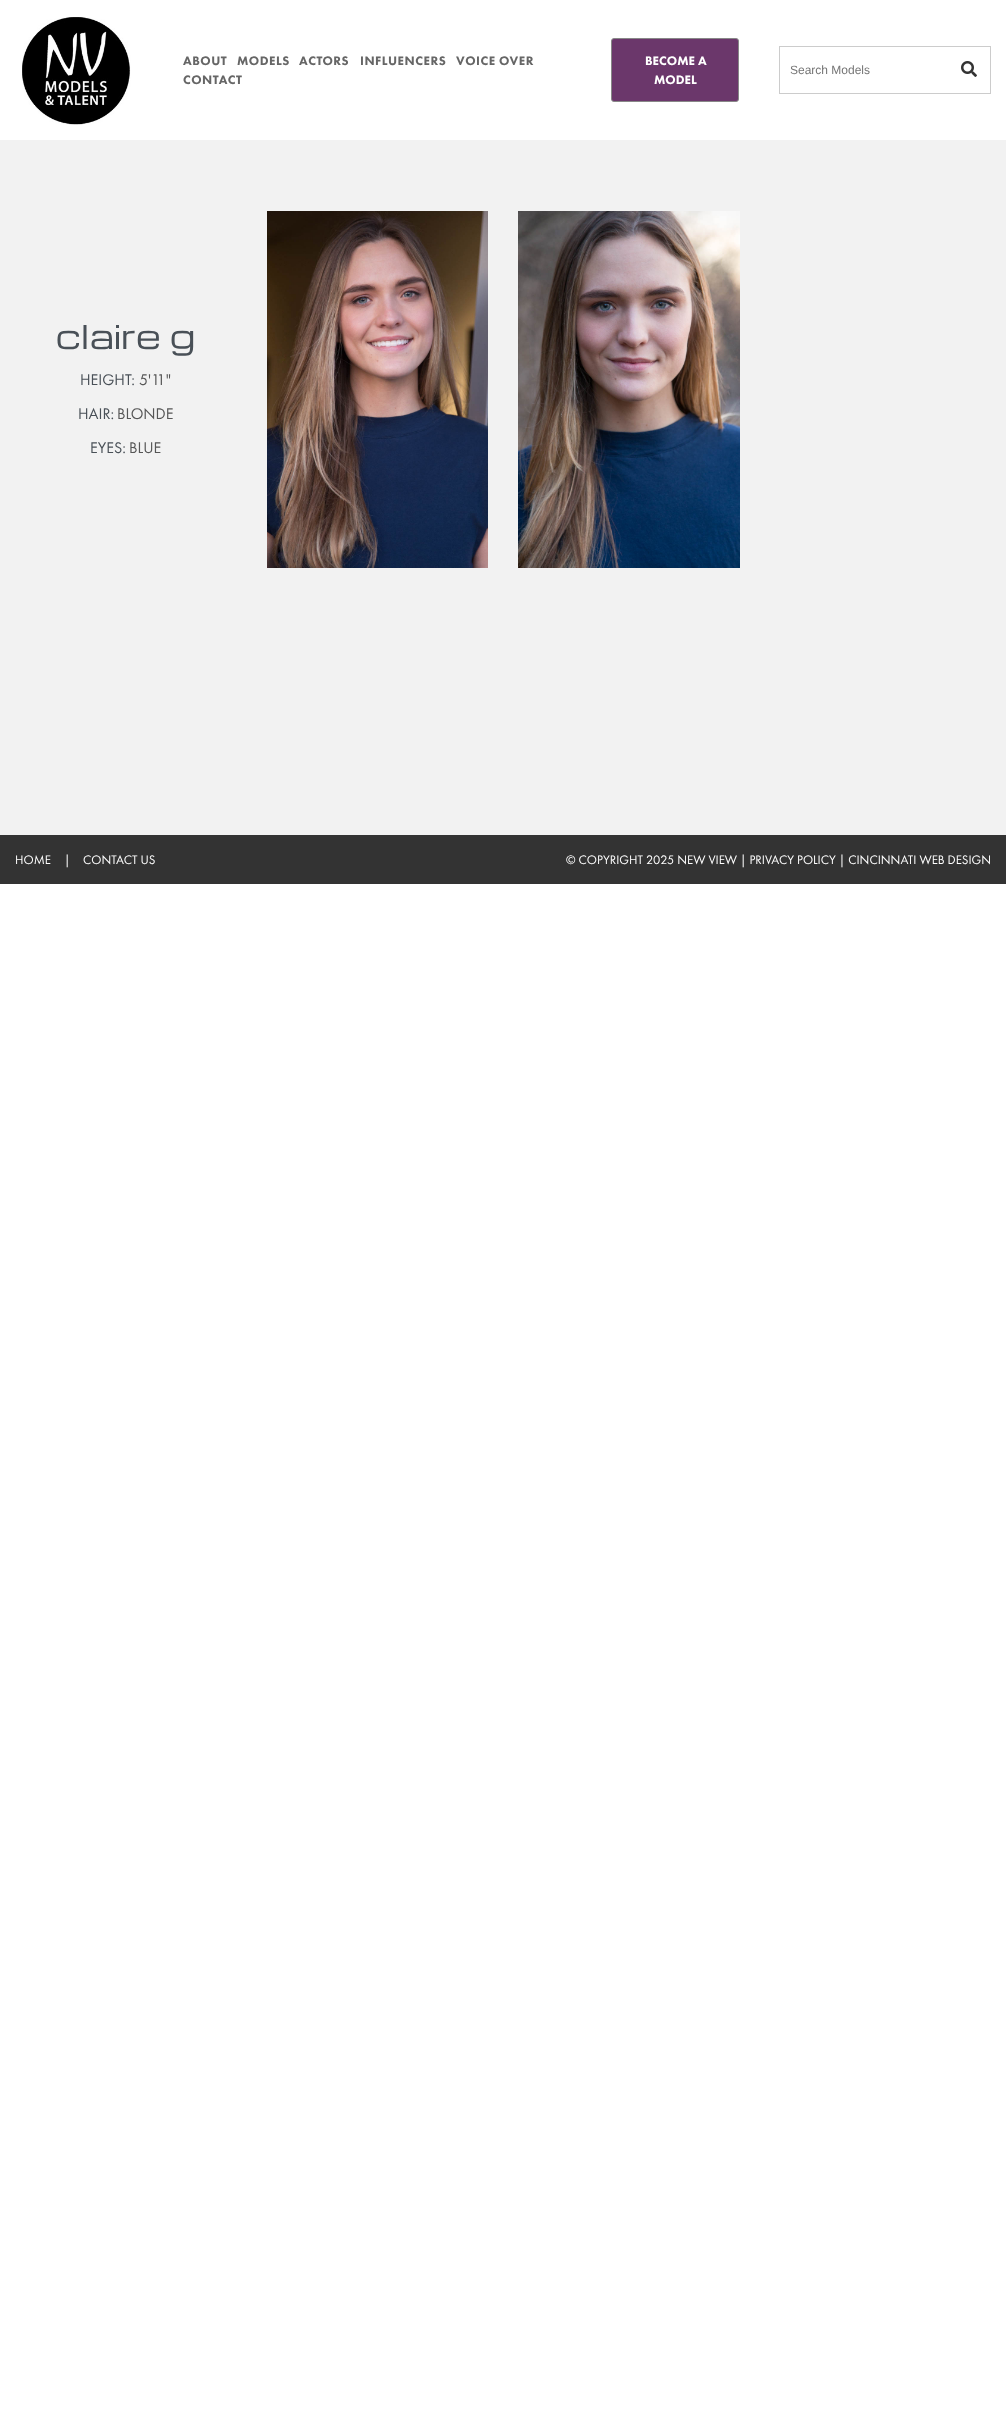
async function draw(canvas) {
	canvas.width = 1006;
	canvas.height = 2420;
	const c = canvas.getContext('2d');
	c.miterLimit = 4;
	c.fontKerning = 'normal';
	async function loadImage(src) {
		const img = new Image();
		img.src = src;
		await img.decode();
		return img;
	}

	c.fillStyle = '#fff';
	c.fillRect(0, 0, 1006, 2420);
	c.drawImage(await loadImage('img1.png'), 22, 17, 109, 108);
	c.letterSpacing = '0.5px';
	c.font = '900 12.8px Futura PT';
	c.fillStyle = '#666';
	for (const [text, x, y] of [
		['ABOUT', 183, 65],
		['MODELS', 237, 65],
		['ACTORS', 299, 65],
		['INFLUENCERS', 360, 65],
		['VOICE OVER', 456, 65],
		['CONTACT', 183, 84],
	]) {
		c.fillText(text, x, y);
	}
	c.fillStyle = '#6b376b';
	c.beginPath();
	c.roundRect(611.5, 38.5, 127, 63, 2.5);
	c.fill();
	c.strokeStyle = '#888';
	c.stroke();
	c.letterSpacing = '0px';
	c.fillStyle = '#fff';
	c.fillText('BECOME A', 645, 65);
	c.fillText('MODEL', 654, 84);
	c.strokeStyle = '#ccc';
	c.strokeRect(779.5, 46.5, 211, 47);
	c.font = '12px Liberation Sans';
	c.fillStyle = '#757575';
	c.fillText('Search Models', 790, 74);
	c.drawImage(await loadImage('img2.png'), 961, 61, 16, 16);
	c.fillStyle = '#f2f2f2';
	c.fillRect(0, 140, 1006, 695);
	c.font = '32px Michroma';
	c.fillStyle = '#495057';
	c.fillText('claire g', 56, 349);
	c.font = '16px Futura PT';
	c.fillText('HEIGHT:', 80, 385);
	c.fillStyle = '#565656';
	c.fillText('5\'11"', 139, 385);
	c.fillStyle = '#495057';
	c.fillText('HAIR:', 78, 419);
	c.fillStyle = '#565656';
	c.fillText('BLONDE', 117, 419);
	c.fillStyle = '#495057';
	c.fillText('EYES:', 90, 453);
	c.fillStyle = '#565656';
	c.fillText('BLUE', 129, 453);
	c.drawImage(await loadImage('img3.png'), 267, 211, 221, 357);
	c.drawImage(await loadImage('img4.png'), 518, 211, 222, 357);
	c.fillStyle = '#333';
	c.fillRect(0, 835, 1006, 49);
	c.font = '12.8px Futura PT';
	c.fillStyle = '#fff';
	for (const [text, x, y] of [
		['HOME', 15, 864],
		['|', 64, 864],
		['CONTACT US', 83, 864],
		['© COPYRIGHT 2025 NEW VIEW | PRIVACY POLICY | CINCINNATI WEB DESIGN', 566, 864],
	]) {
		c.fillText(text, x, y);
	}
}

draw(document.querySelector('canvas'));
